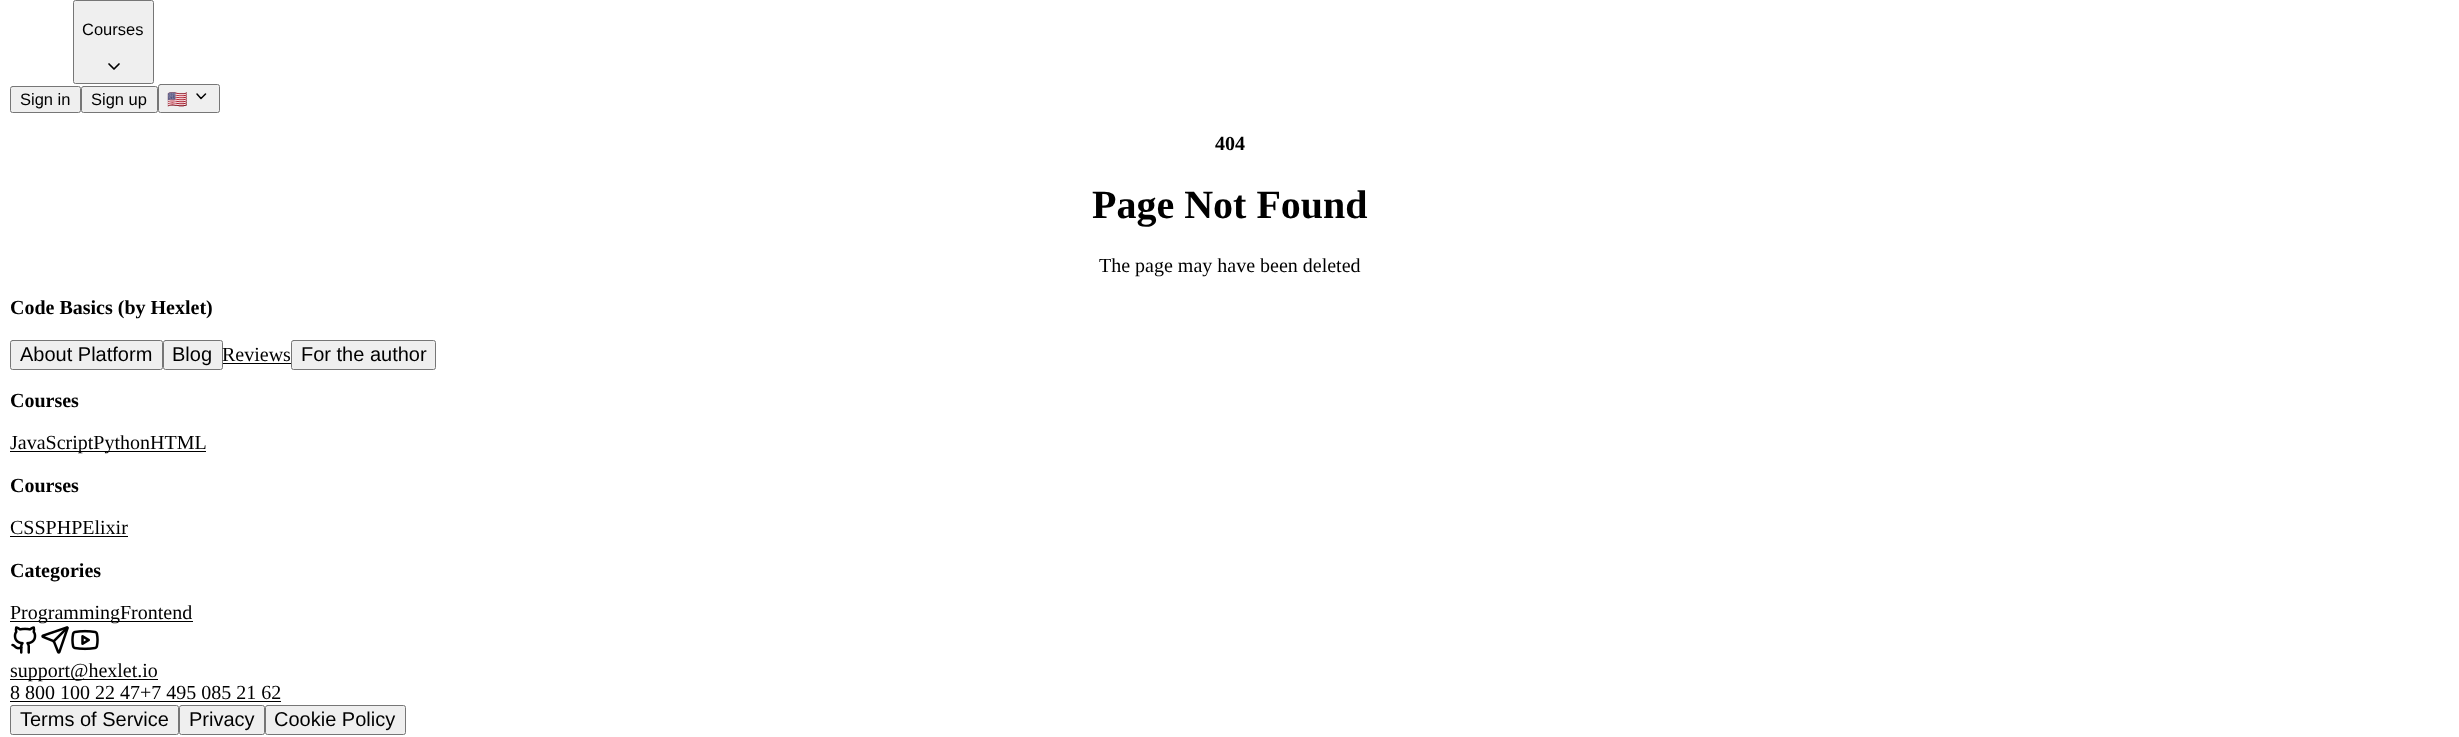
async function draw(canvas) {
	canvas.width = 2459;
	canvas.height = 737;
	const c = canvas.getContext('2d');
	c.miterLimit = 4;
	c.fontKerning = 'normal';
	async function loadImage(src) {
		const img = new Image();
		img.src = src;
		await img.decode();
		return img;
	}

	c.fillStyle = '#fff';
	c.fillRect(0, 0, 2459, 737);
	c.fillStyle = '#efefef';
	c.beginPath();
	c.roundRect(73.5, 0.5, 80, 83, 2);
	c.fill();
	c.strokeStyle = '#767676';
	c.stroke();
	c.font = '16.5px Liberation Sans';
	c.fillStyle = '#000';
	c.fillText('Courses', 82, 35);
	c.beginPath();
	c.moveTo(109, 64);
	c.lineTo(114, 69);
	c.lineTo(119, 64);
	c.strokeStyle = '#000';
	c.lineWidth = 1.7;
	c.lineCap = 'round';
	c.lineJoin = 'round';
	c.stroke();
	c.fillStyle = '#efefef';
	c.beginPath();
	c.roundRect(10.5, 86.5, 70, 26, 2);
	c.fill();
	c.strokeStyle = '#767676';
	c.lineWidth = 1;
	c.lineJoin = 'miter';
	c.stroke();
	c.fillStyle = '#000';
	c.fillText('Sign in', 20, 105);
	c.fillStyle = '#efefef';
	c.beginPath();
	c.roundRect(81.5, 86.5, 76, 26, 2);
	c.fill();
	c.stroke();
	c.fillStyle = '#000';
	c.fillText('Sign up', 91, 105);
	c.fillStyle = '#efefef';
	c.beginPath();
	c.roundRect(158.5, 84.5, 61, 28, 2);
	c.fill();
	c.stroke();
	c.font = '16.5px Noto Color Emoji';
	c.fillStyle = '#000';
	c.fillText('🇺🇲', 167, 105);
	c.beginPath();
	c.moveTo(197, 94);
	c.lineTo(201, 98.5);
	c.lineTo(205.5, 94);
	c.strokeStyle = '#000';
	c.lineWidth = 1.5;
	c.lineJoin = 'round';
	c.stroke();
	c.font = 'bold 20px Liberation Serif';
	c.fillText('404', 1215, 150);
	c.font = 'bold 40px Liberation Serif';
	c.fillText('Page Not Found', 1092, 218);
	c.font = '20px Liberation Serif';
	c.fillText('The page may have been deleted', 1099, 272);
	c.font = 'bold 20px Liberation Serif';
	c.fillText('Code Basics (by Hexlet)', 10, 314);
	c.fillStyle = '#efefef';
	c.beginPath();
	c.roundRect(10.5, 340.5, 152, 29, 2);
	c.fill();
	c.strokeStyle = '#767676';
	c.lineWidth = 1;
	c.lineJoin = 'miter';
	c.stroke();
	c.font = '20px Liberation Sans';
	c.fillStyle = '#000';
	c.fillText('About Platform', 20, 361);
	c.fillStyle = '#efefef';
	c.beginPath();
	c.roundRect(163.5, 340.5, 59, 29, 2);
	c.fill();
	c.stroke();
	c.fillStyle = '#000';
	c.fillText('Blog', 172, 361);
	c.font = '20px Liberation Serif';
	c.fillText('Reviews', 222, 361);
	c.fillRect(223, 363, 68, 1);
	c.fillStyle = '#efefef';
	c.beginPath();
	c.roundRect(291.5, 340.5, 144, 29, 2);
	c.fill();
	c.stroke();
	c.font = '20px Liberation Sans';
	c.fillStyle = '#000';
	c.fillText('For the author', 301, 361);
	c.font = 'bold 20px Liberation Serif';
	c.fillText('Courses', 10, 407);
	c.fillRect(10, 451, 196, 1);
	c.font = '20px Liberation Serif';
	c.fillText('JavaScriptPythonHTML', 10, 449);
	c.font = 'bold 20px Liberation Serif';
	c.fillText('Courses', 10, 492);
	c.font = '20px Liberation Serif';
	c.fillText('CSSPHPElixir', 10, 534);
	c.fillRect(10, 536, 118, 1);
	c.font = 'bold 20px Liberation Serif';
	c.fillText('Categories', 10, 577);
	c.fillRect(10, 621, 183, 1);
	c.font = '20px Liberation Serif';
	c.fillText('ProgrammingFrontend', 10, 619);
	c.drawImage(await loadImage('img1.png'), 11, 626, 26, 28);
	c.drawImage(await loadImage('img2.png'), 41, 626, 28, 28);
	c.drawImage(await loadImage('img3.png'), 71, 629, 28, 22);
	c.fillRect(10, 679, 148, 1);
	c.fillText('support@hexlet.io', 10, 677);
	c.fillText('8 800 100 22 47+7 495 085 21 62', 10, 699);
	c.fillRect(10, 701, 271, 1);
	c.fillStyle = '#efefef';
	c.beginPath();
	c.roundRect(10.5, 705.5, 168, 29, 2);
	c.fill();
	c.stroke();
	c.font = '20px Liberation Sans';
	c.fillStyle = '#000';
	c.fillText('Terms of Service', 20, 726);
	c.fillStyle = '#efefef';
	c.beginPath();
	c.roundRect(179.5, 705.5, 85, 29, 2);
	c.fill();
	c.stroke();
	c.fillStyle = '#000';
	c.fillText('Privacy', 189, 726);
	c.fillStyle = '#efefef';
	c.beginPath();
	c.roundRect(265.5, 705.5, 140, 29, 2);
	c.fill();
	c.stroke();
	c.fillStyle = '#000';
	c.fillText('Cookie Policy', 274, 726);
}

draw(document.querySelector('canvas'));
